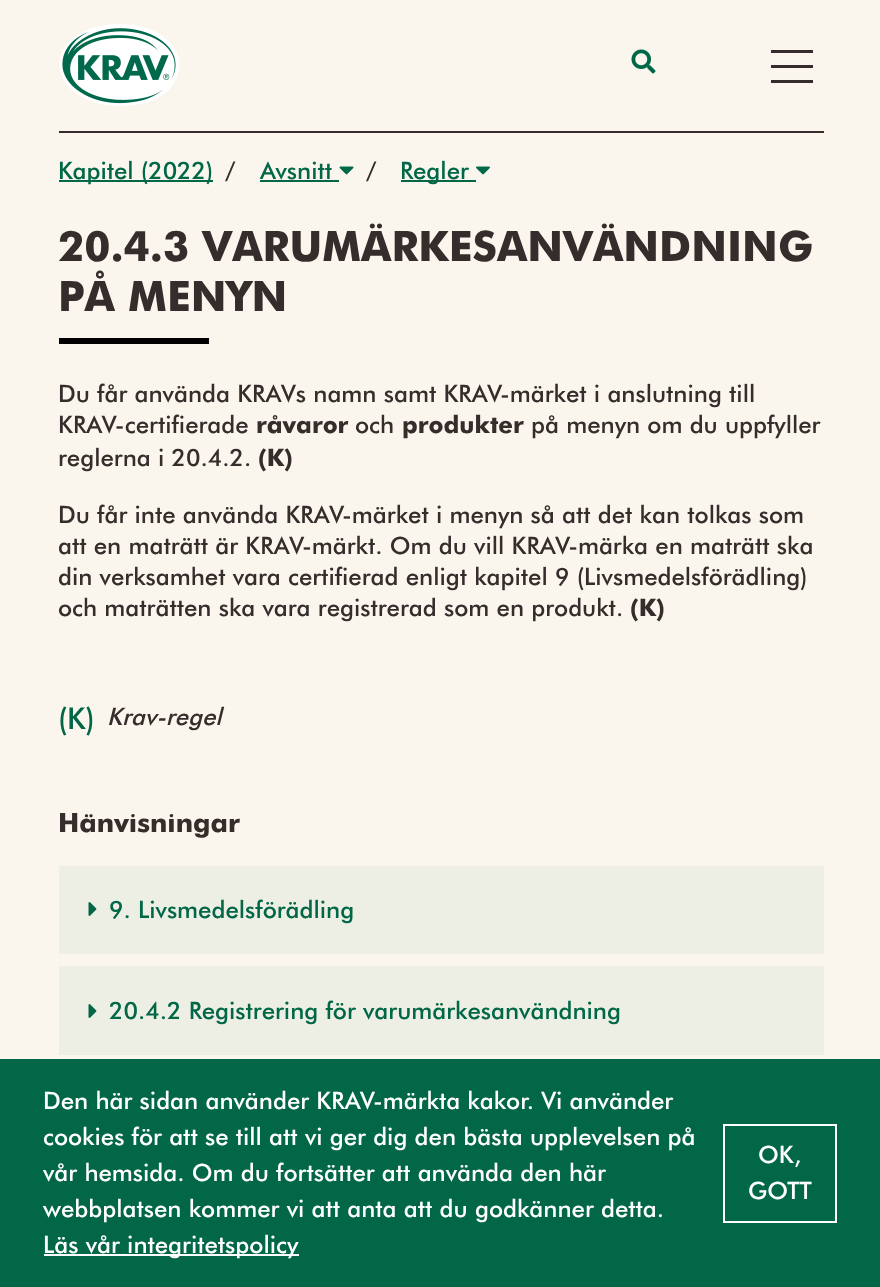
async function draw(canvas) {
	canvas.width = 880;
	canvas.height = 1287;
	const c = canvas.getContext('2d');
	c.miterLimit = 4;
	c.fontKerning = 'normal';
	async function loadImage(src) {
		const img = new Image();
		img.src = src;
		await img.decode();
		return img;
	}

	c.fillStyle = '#faf6ee';
	c.fillRect(0, 0, 880, 1287);
	c.fillStyle = '#342d2c';
	c.fillRect(59, 131, 765, 2);
	c.drawImage(await loadImage('img1.png'), 59, 24, 120, 82);
	c.drawImage(await loadImage('img2.png'), 631, 49, 25, 25);
	for (const [x, y, w, h, color] of [
		[771, 65, 42, 3, '#342d2c'],
		[771, 50, 42, 3, '#342d2c'],
		[771, 80, 42, 3, '#342d2c'],
		[59, 180, 154, 2, '#006747'],
	]) {
		c.fillStyle = color;
		c.fillRect(x, y, w, h);
	}
	c.font = '500 24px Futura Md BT';
	c.fillStyle = '#016747';
	c.fillText('Kapitel (2022)', 58, 179);
	c.fillStyle = '#342d2c';
	c.fillText('/', 225, 179);
	c.fillStyle = '#016747';
	c.fillText('Avsnitt', 260, 179);
	c.fillStyle = '#006747';
	c.fillRect(260, 180, 79, 2);
	c.drawImage(await loadImage('img3.png'), 339, 166, 15, 9);
	c.fillStyle = '#342d2c';
	c.fillText('/', 366, 179);
	c.fillStyle = '#006747';
	c.fillRect(401, 180, 75, 2);
	c.fillStyle = '#016747';
	c.fillText('Regler', 400, 179);
	c.drawImage(await loadImage('img4.png'), 476, 166, 14, 9);
	c.font = 'bold 42px Futura';
	c.fillStyle = '#342d2c';
	c.fillText('20.4.3 VARUMÄRKESANVÄNDNING', 58, 261);
	c.fillText('PÅ MENYN', 58, 311);
	c.fillStyle = '#000';
	c.fillRect(59, 338, 150, 6);
	c.font = '500 24px Futura Md BT';
	c.fillStyle = '#342d2c';
	c.fillText('Du får använda KRAVs namn samt KRAV-märket i anslutning till', 58, 402);
	c.fillText('KRAV-certifierade', 58, 433);
	c.font = 'bold 24px Futura';
	c.fillText('råvaror', 256, 433);
	c.font = '500 24px Futura Md BT';
	c.fillText('och', 355, 433);
	c.font = 'bold 24px Futura';
	c.fillText('produkter', 402, 433);
	c.font = '500 24px Futura Md BT';
	c.fillText('på menyn om du uppfyller', 531, 433);
	c.fillText('reglerna i 20.4.2.', 58, 466);
	c.font = 'bold 24px Futura';
	c.fillText('(K)', 258, 466);
	c.font = '500 24px Futura Md BT';
	for (const [text, x, y] of [
		['Du får inte använda KRAV-märket i menyn så att det kan tolkas som', 58, 523],
		['att en maträtt är KRAV-märkt. Om du vill KRAV-märka en maträtt ska', 58, 554],
		['din verksamhet vara certifierad enligt kapitel 9 (Livsmedelsförädling)', 58, 585],
		['och maträtten ska vara registrerad som en produkt.', 58, 616],
	]) {
		c.fillText(text, x, y);
	}
	c.font = 'bold 24px Futura';
	c.fillText('(K)', 630, 616);
	c.font = '500 30px Futura Md BT';
	c.fillStyle = '#016747';
	c.fillText('(K)', 58, 729);
	c.font = 'italic 500 24px Futura Md BT';
	c.fillStyle = '#342d2c';
	c.fillText('Krav-regel', 107, 725);
	c.font = 'bold 26.5px Futura';
	c.fillText('Hänvisningar', 58, 832);
	c.fillStyle = '#eeefe4';
	c.fillRect(59, 866, 765, 88);
	c.drawImage(await loadImage('img5.png'), 88, 902, 9, 14);
	c.font = '500 24px Futura Md BT';
	c.fillStyle = '#016747';
	c.fillText('9. Livsmedelsförädling', 109, 918);
	c.fillStyle = '#eeefe4';
	c.fillRect(59, 966, 765, 89);
	c.drawImage(await loadImage('img5.png'), 88, 1004, 9, 14);
	c.fillStyle = '#016747';
	c.fillText('20.4.2 Registrering för varumärkesanvändning', 109, 1019);
	c.fillRect(0, 1059, 880, 228);
	c.fillStyle = '#fff';
	for (const [text, x, y] of [
		['Den här sidan använder KRAV-märkta kakor. Vi använder', 43, 1109],
		['cookies för att se till att vi ger dig den bästa upplevelsen på', 43, 1145],
		['vår hemsida. Om du fortsätter att använda den här', 43, 1181],
		['webbplatsen kommer vi att anta att du godkänner detta.', 43, 1217],
	]) {
		c.fillText(text, x, y);
	}
	c.fillRect(44, 1254, 255, 2);
	c.fillText('Läs vår integritetspolicy', 43, 1253);
	c.strokeStyle = '#fff';
	c.lineWidth = 2;
	c.strokeRect(724, 1125, 112, 97);
	c.fillText('OK,', 758, 1163);
	c.fillText('GOTT', 748, 1199);
}

draw(document.querySelector('canvas'));
